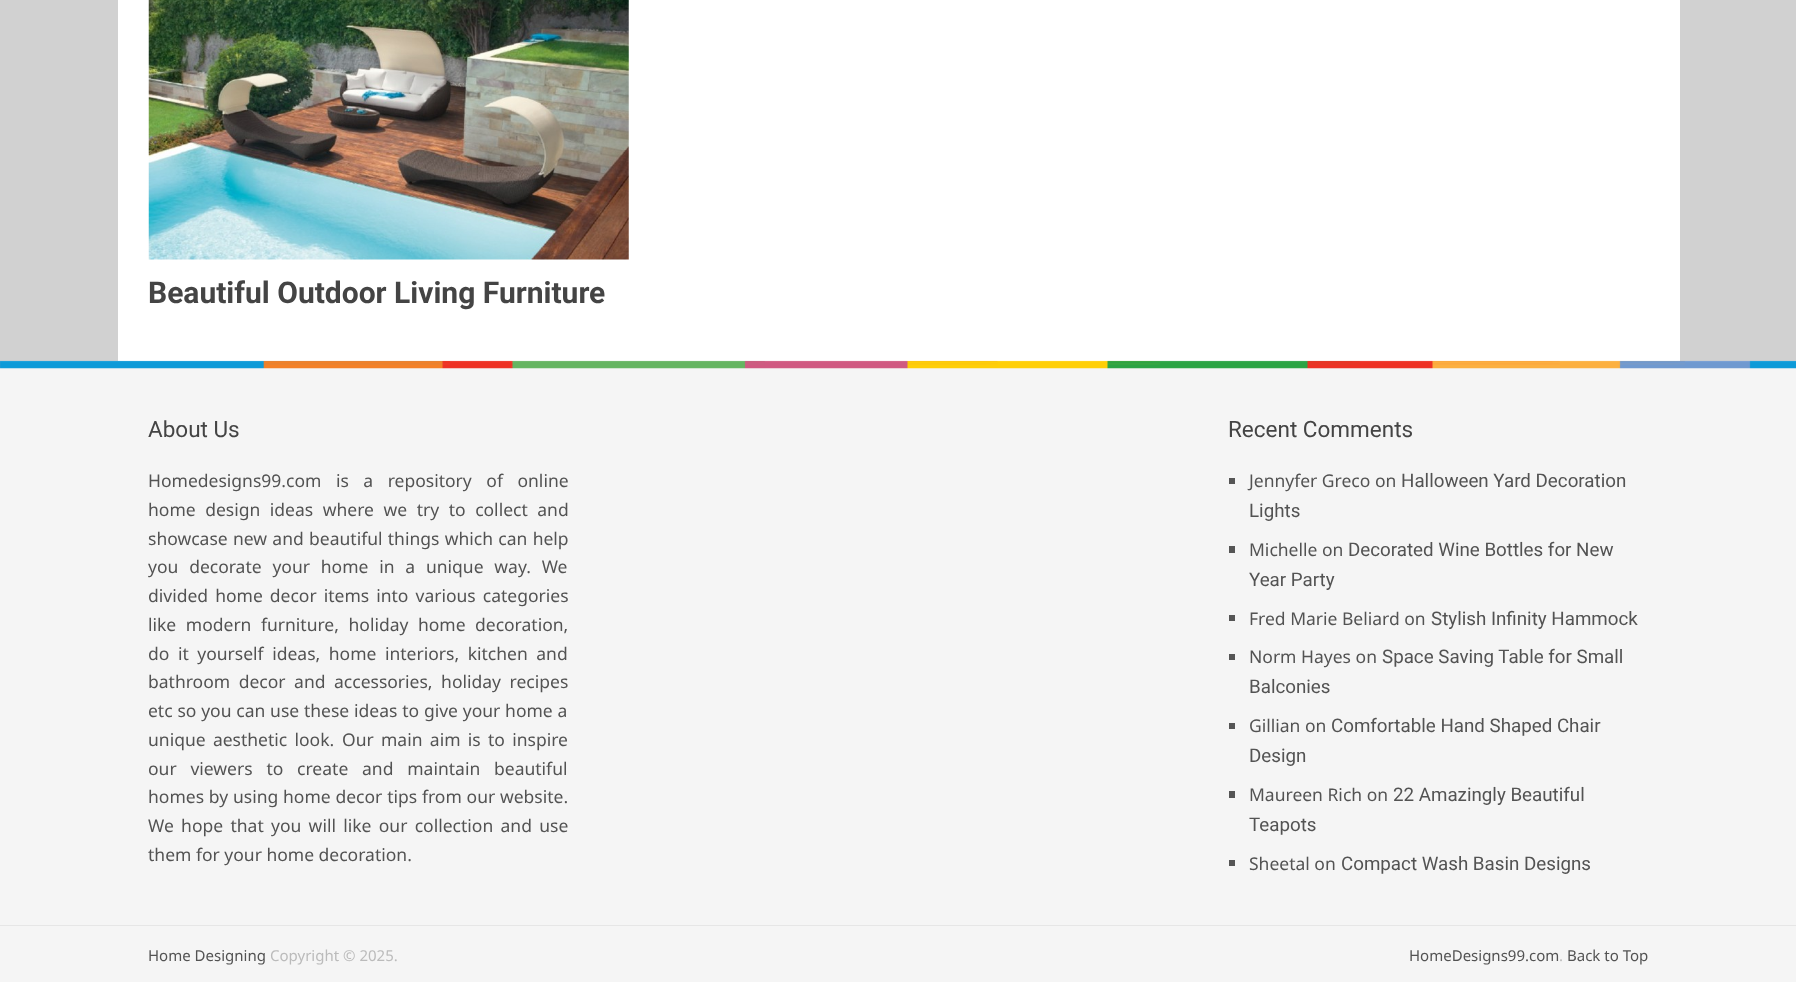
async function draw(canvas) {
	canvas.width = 1796;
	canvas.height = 982;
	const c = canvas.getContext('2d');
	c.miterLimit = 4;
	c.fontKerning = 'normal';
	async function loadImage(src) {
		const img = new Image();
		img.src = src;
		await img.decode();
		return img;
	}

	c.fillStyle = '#d1d1d1';
	c.fillRect(0, 0, 1796, 982);
	c.fillStyle = '#fff';
	c.fillRect(118, 0, 1562, 361);
	c.drawImage(await loadImage('img1.png'), 148, 0, 481, 260);
	c.font = 'bold 30px Roboto';
	c.fillStyle = '#444';
	c.fillText('Beautiful Outdoor Living Furniture', 148, 303);
	c.fillStyle = '#f5f5f5';
	c.fillRect(0, 361, 1796, 621);
	c.drawImage(await loadImage('img2.png'), 0, 360, 1796, 9);
	c.font = '22.5px Roboto';
	c.fillStyle = '#444';
	c.fillText('About Us', 148, 437);
	c.wordSpacing = '10px';
	c.font = '17.5px Noto Sans';
	c.fillStyle = '#535353';
	c.fillText('Homedesigns99.com is a repository of online', 148, 487);
	c.wordSpacing = '5px';
	c.fillText('home design ideas where we try to collect and', 148, 516);
	c.wordSpacing = '0.75px';
	c.fillText('showcase new and beautiful things which can help', 148, 545);
	c.wordSpacing = '6.25px';
	c.fillText('you decorate your home in a unique way. We', 148, 573);
	c.wordSpacing = '2.5px';
	c.fillText('divided home decor items into various categories', 148, 602);
	c.wordSpacing = '5px';
	c.fillText('like modern furniture, holiday home', 148, 631);
	c.wordSpacing = '0px';
	c.fillText('decoration,', 475, 631);
	c.wordSpacing = '4px';
	c.fillText('do it yourself ideas, home interiors, kitchen and', 148, 660);
	c.fillText('bathroom decor and accessories, holiday recipes', 148, 688);
	c.wordSpacing = '0.25px';
	c.fillText('etc so you can use these ideas to give your home a', 148, 717);
	c.wordSpacing = '2.75px';
	c.fillText('unique aesthetic look.', 148, 746);
	c.fillText('Our main aim is to inspire', 342, 746);
	c.wordSpacing = '9.25px';
	c.fillText('our viewers to create and maintain beautiful', 148, 775);
	c.wordSpacing = '0.25px';
	c.fillText('homes by using home decor tips from our website.', 148, 803);
	c.wordSpacing = '2.75px';
	c.fillText('We hope that you will like our collection and use', 148, 832);
	c.wordSpacing = '0px';
	c.fillText('them for your home decoration.', 148, 861);
	c.font = '22.5px Roboto';
	c.fillStyle = '#444';
	c.fillText('Recent Comments', 1228, 437);
	c.fillStyle = '#555';
	c.fillRect(1229, 478, 6, 6);
	c.font = '17.5px Noto Sans';
	c.fillStyle = '#535353';
	c.fillText('Jennyfer Greco on', 1249, 487);
	c.font = '18.75px Roboto';
	c.fillText('Halloween Yard Decoration', 1401, 487);
	c.fillText('Lights', 1249, 517);
	c.fillStyle = '#555';
	c.fillRect(1229, 546, 6, 7);
	c.font = '17.5px Noto Sans';
	c.fillStyle = '#535353';
	c.fillText('Michelle on', 1249, 556);
	c.font = '18.75px Roboto';
	c.fillText('Decorated Wine Bottles for New', 1348, 556);
	c.fillText('Year Party', 1249, 586);
	c.fillStyle = '#555';
	c.fillRect(1229, 615, 6, 6);
	c.font = '17.5px Noto Sans';
	c.fillStyle = '#535353';
	c.fillText('Fred Marie Beliard on', 1249, 625);
	c.font = '18.75px Roboto';
	c.fillText('Stylish Infinity Hammock', 1431, 625);
	c.fillStyle = '#555';
	c.fillRect(1229, 654, 6, 6);
	c.font = '17.5px Noto Sans';
	c.fillStyle = '#535353';
	c.fillText('Norm Hayes on', 1249, 663);
	c.font = '18.75px Roboto';
	c.fillText('Space Saving Table for Small', 1382, 663);
	c.fillText('Balconies', 1249, 693);
	c.fillStyle = '#555';
	c.fillRect(1229, 723, 6, 6);
	c.font = '17.5px Noto Sans';
	c.fillStyle = '#535353';
	c.fillText('Gillian on', 1249, 732);
	c.font = '18.75px Roboto';
	c.fillText('Comfortable Hand Shaped Chair', 1331, 732);
	c.fillText('Design', 1249, 762);
	c.fillStyle = '#555';
	c.fillRect(1229, 791, 6, 7);
	c.font = '17.5px Noto Sans';
	c.fillStyle = '#535353';
	c.fillText('Maureen Rich on', 1249, 801);
	c.font = '18.75px Roboto';
	c.fillText('22 Amazingly Beautiful', 1393, 801);
	c.fillText('Teapots', 1249, 831);
	c.fillStyle = '#555';
	c.fillRect(1229, 860, 6, 6);
	c.font = '17.5px Noto Sans';
	c.fillStyle = '#535353';
	c.fillText('Sheetal on', 1249, 870);
	c.font = '18.75px Roboto';
	c.fillText('Compact Wash Basin Designs', 1341, 870);
	c.fillStyle = '#e6e6e6';
	c.fillRect(0, 925, 1796, 1);
	c.font = '15px Noto Sans';
	c.fillStyle = '#535353';
	c.fillText('Home Designing', 148, 961);
	c.fillStyle = '#bbb';
	c.fillText('Copyright © 2025.', 270, 961);
	c.fillStyle = '#535353';
	c.fillText('HomeDesigns99.com', 1409, 961);
	c.fillStyle = '#bbb';
	c.fillText('.', 1559, 961);
	c.fillStyle = '#535353';
	c.fillText('Back to Top', 1567, 961);
}

draw(document.querySelector('canvas'));
